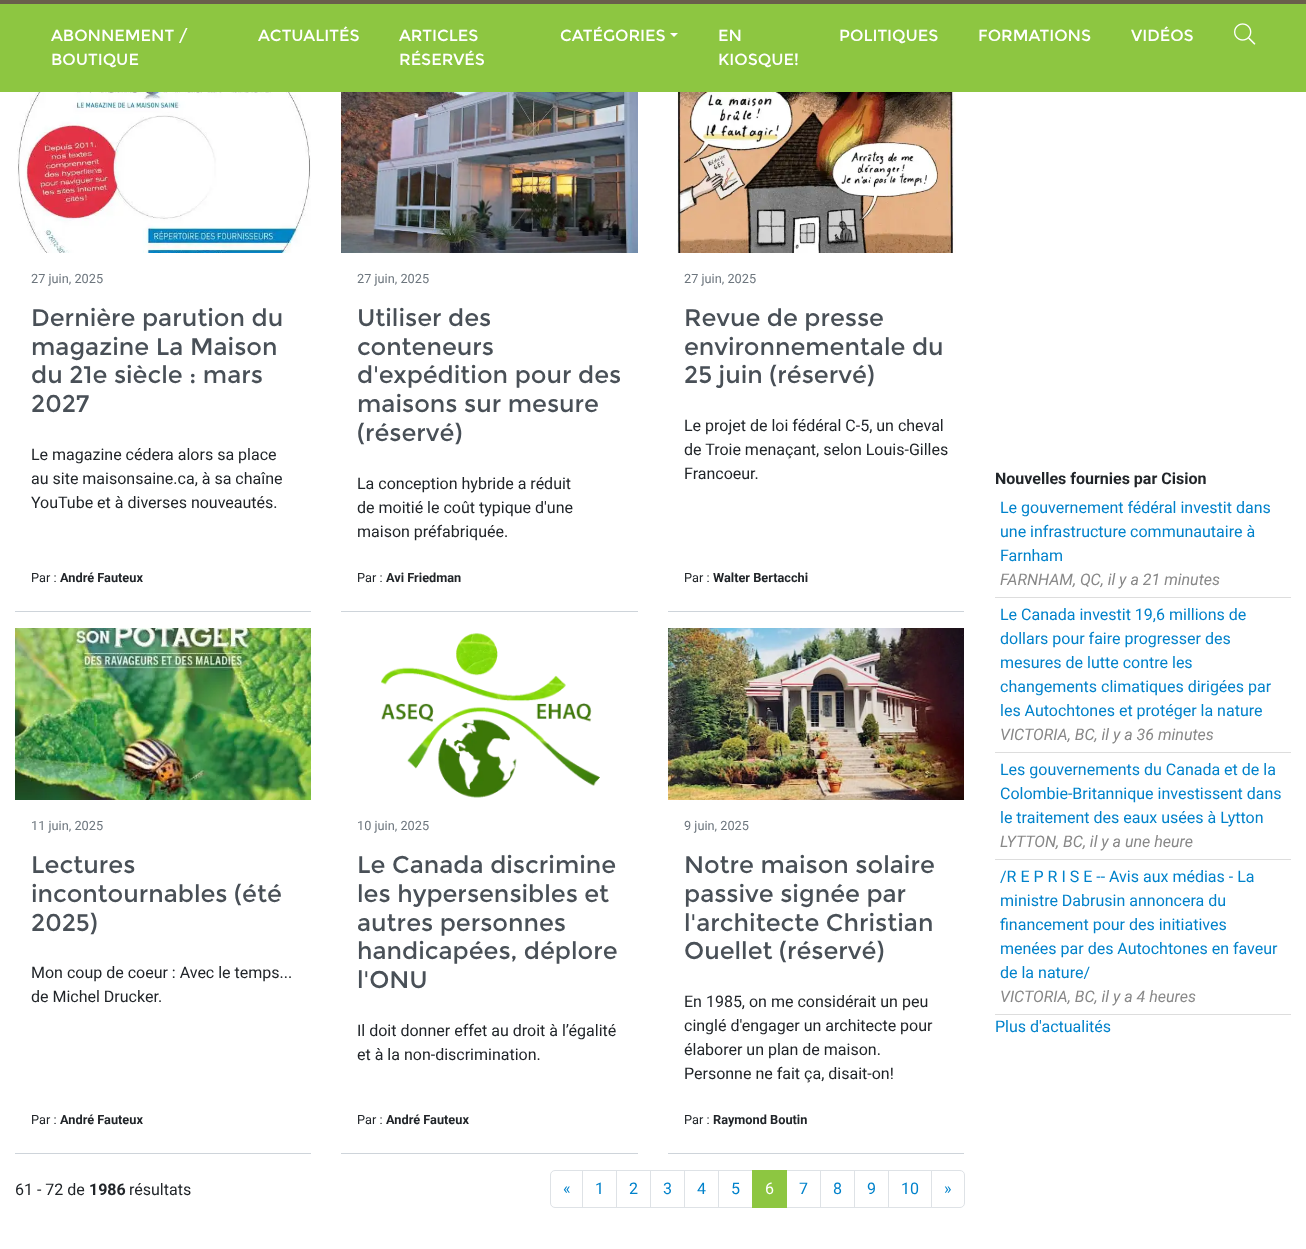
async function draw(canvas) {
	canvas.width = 1306;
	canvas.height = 1249;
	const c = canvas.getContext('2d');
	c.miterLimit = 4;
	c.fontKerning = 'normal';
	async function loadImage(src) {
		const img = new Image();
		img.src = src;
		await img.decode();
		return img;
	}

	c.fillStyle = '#fff';
	c.fillRect(0, 0, 1306, 1249);
	c.fillStyle = '#8dc641';
	c.fillRect(0, 4, 1306, 88);
	c.fillStyle = '#695f4b';
	c.fillRect(0, 0, 1306, 4);
	c.font = '16px Montserrat';
	c.fillStyle = '#fff';
	for (const [text, x, y] of [
		['ABONNEMENT /', 51, 41],
		['BOUTIQUE', 51, 65],
		['ACTUALITÉS', 258, 41],
		['ARTICLES', 399, 41],
		['RÉSERVÉS', 399, 65],
		['CATÉGORIES', 560, 41],
	]) {
		c.fillText(text, x, y);
	}
	c.beginPath();
	c.moveTo(670, 33);
	c.lineTo(678, 33);
	c.lineTo(674, 37);
	c.closePath();
	c.fill();
	for (const [text, x, y] of [
		['EN', 718, 41],
		['KIOSQUE!', 718, 65],
		['POLITIQUES', 839, 41],
		['FORMATIONS', 978, 41],
		['VIDÉOS', 1131, 41],
	]) {
		c.fillText(text, x, y);
	}
	c.drawImage(await loadImage('img1.png'), 1234, 23, 22, 22);
	c.fillStyle = '#ced4da';
	c.fillRect(15, 611, 296, 1);
	c.drawImage(await loadImage('img2.png'), 17, 92, 294, 161);
	c.font = '12.75px Roboto';
	c.fillStyle = '#6c757d';
	c.fillText('27 juin, 2025', 31, 283);
	c.font = '24px Montserrat';
	c.fillStyle = '#495057';
	for (const [text, x, y] of [
		['Dernière parution du', 31, 326],
		['magazine La Maison', 31, 355],
		['du 21e siècle : mars', 31, 383],
		['2027', 31, 412],
	]) {
		c.fillText(text, x, y);
	}
	c.font = '16px Roboto';
	c.fillStyle = '#212529';
	for (const [text, x, y] of [
		['Le magazine cédera alors sa place', 31, 460],
		['au site maisonsaine.ca, à sa chaîne', 31, 484],
		['YouTube et à diverses nouveautés.', 31, 508],
	]) {
		c.fillText(text, x, y);
	}
	c.font = '12.75px Roboto';
	c.fillText('Par :', 31, 582);
	c.font = 'bold 12.75px Roboto';
	c.fillText('André Fauteux', 60, 582);
	c.fillStyle = '#ced4da';
	c.fillRect(341, 611, 297, 1);
	c.drawImage(await loadImage('img3.png'), 341, 92, 297, 161);
	c.font = '12.75px Roboto';
	c.fillStyle = '#6c757d';
	c.fillText('27 juin, 2025', 357, 283);
	c.font = '24px Montserrat';
	c.fillStyle = '#495057';
	for (const [text, x, y] of [
		['Utiliser des', 357, 326],
		['conteneurs', 357, 355],
		['d\'expédition pour des', 357, 383],
		['maisons sur mesure', 357, 412],
		['(réservé)', 357, 441],
	]) {
		c.fillText(text, x, y);
	}
	c.font = '16px Roboto';
	c.fillStyle = '#212529';
	for (const [text, x, y] of [
		['La conception hybride a réduit', 357, 489],
		['de moitié le coût typique d\'une', 357, 513],
		['maison préfabriquée.', 357, 537],
	]) {
		c.fillText(text, x, y);
	}
	c.font = '12.75px Roboto';
	c.fillText('Par :', 357, 582);
	c.font = 'bold 12.75px Roboto';
	c.fillText('Avi Friedman', 386, 582);
	c.fillStyle = '#ced4da';
	c.fillRect(668, 611, 296, 1);
	c.drawImage(await loadImage('img4.png'), 677, 92, 279, 161);
	c.font = '12.75px Roboto';
	c.fillStyle = '#6c757d';
	c.fillText('27 juin, 2025', 684, 283);
	c.font = '24px Montserrat';
	c.fillStyle = '#495057';
	for (const [text, x, y] of [
		['Revue de presse', 684, 326],
		['environnementale du', 684, 355],
		['25 juin (réservé)', 684, 383],
	]) {
		c.fillText(text, x, y);
	}
	c.font = '16px Roboto';
	c.fillStyle = '#212529';
	for (const [text, x, y] of [
		['Le projet de loi fédéral C-5, un cheval', 684, 431],
		['de Troie menaçant, selon Louis-Gilles', 684, 455],
		['Francoeur.', 684, 479],
	]) {
		c.fillText(text, x, y);
	}
	c.font = '12.75px Roboto';
	c.fillText('Par :', 684, 582);
	c.font = 'bold 12.75px Roboto';
	c.fillText('Walter Bertacchi', 713, 582);
	c.fillStyle = '#ced4da';
	c.fillRect(15, 1153, 296, 1);
	c.drawImage(await loadImage('img5.png'), 15, 628, 296, 172);
	c.font = '12.75px Roboto';
	c.fillStyle = '#6c757d';
	c.fillText('11 juin, 2025', 31, 830);
	c.font = '24px Montserrat';
	c.fillStyle = '#495057';
	for (const [text, x, y] of [
		['Lectures', 31, 873],
		['incontournables (été', 31, 902],
		['2025)', 31, 931],
	]) {
		c.fillText(text, x, y);
	}
	c.font = '16px Roboto';
	c.fillStyle = '#212529';
	c.fillText('Mon coup de coeur : Avec le temps...', 31, 978);
	c.fillText('de Michel Drucker.', 31, 1002);
	c.font = '12.75px Roboto';
	c.fillText('Par :', 31, 1124);
	c.font = 'bold 12.75px Roboto';
	c.fillText('André Fauteux', 60, 1124);
	c.fillStyle = '#ced4da';
	c.fillRect(341, 1153, 297, 1);
	c.drawImage(await loadImage('img6.png'), 381, 633, 219, 165);
	c.font = '12.75px Roboto';
	c.fillStyle = '#6c757d';
	c.fillText('10 juin, 2025', 357, 830);
	c.font = '24px Montserrat';
	c.fillStyle = '#495057';
	for (const [text, x, y] of [
		['Le Canada discrimine', 357, 873],
		['les hypersensibles et', 357, 902],
		['autres personnes', 357, 931],
		['handicapées, déplore', 357, 959],
		['l\'ONU', 357, 988],
	]) {
		c.fillText(text, x, y);
	}
	c.font = '16px Roboto';
	c.fillStyle = '#212529';
	c.fillText('Il doit donner effet au droit à l’égalité', 357, 1036);
	c.fillText('et à la non‑discrimination.', 357, 1060);
	c.font = '12.75px Roboto';
	c.fillText('Par :', 357, 1124);
	c.font = 'bold 12.75px Roboto';
	c.fillText('André Fauteux', 386, 1124);
	c.fillStyle = '#ced4da';
	c.fillRect(668, 1153, 296, 1);
	c.drawImage(await loadImage('img7.png'), 668, 628, 296, 172);
	c.font = '12.75px Roboto';
	c.fillStyle = '#6c757d';
	c.fillText('9 juin, 2025', 684, 830);
	c.font = '24px Montserrat';
	c.fillStyle = '#495057';
	for (const [text, x, y] of [
		['Notre maison solaire', 684, 873],
		['passive signée par', 684, 902],
		['l\'architecte Christian', 684, 931],
		['Ouellet (réservé)', 684, 959],
	]) {
		c.fillText(text, x, y);
	}
	c.font = '16px Roboto';
	c.fillStyle = '#212529';
	for (const [text, x, y] of [
		['En 1985, on me considérait un peu', 684, 1007],
		['cinglé d\'engager un architecte pour', 684, 1031],
		['élaborer un plan de maison.', 684, 1055],
		['Personne ne fait ça, disait-on!', 684, 1079],
	]) {
		c.fillText(text, x, y);
	}
	c.font = '12.75px Roboto';
	c.fillText('Par :', 684, 1124);
	c.font = 'bold 12.75px Roboto';
	c.fillText('Raymond Boutin', 713, 1124);
	c.font = '16px Roboto';
	c.fillText('61 - 72 de', 15, 1195);
	c.font = 'bold 16px Roboto';
	c.fillText('1986', 89, 1195);
	c.font = '16px Roboto';
	c.fillText('résultats', 129, 1195);
	c.beginPath();
	c.roundRect(550.5, 1170.5, 32, 37, [4.5, 0, 0, 4.5]);
	c.strokeStyle = '#dee2e6';
	c.stroke();
	c.fillStyle = '#0082cb';
	c.fillText('«', 563, 1194);
	c.strokeRect(582.5, 1170.5, 34, 37);
	c.fillText('1', 595, 1194);
	c.strokeRect(616.5, 1170.5, 34, 37);
	c.fillText('2', 629, 1194);
	c.strokeRect(650.5, 1170.5, 34, 37);
	c.fillText('3', 663, 1194);
	c.strokeRect(684.5, 1170.5, 34, 37);
	c.fillText('4', 697, 1194);
	c.strokeRect(718.5, 1170.5, 34, 37);
	c.fillText('5', 731, 1194);
	c.strokeRect(786.5, 1170.5, 34, 37);
	c.fillStyle = '#8dc641';
	c.fillRect(752, 1170, 35, 38);
	c.fillStyle = '#fff';
	c.fillText('6', 765, 1194);
	c.fillStyle = '#0082cb';
	c.fillText('7', 799, 1194);
	c.strokeRect(820.5, 1170.5, 34, 37);
	c.fillText('8', 833, 1194);
	c.strokeRect(854.5, 1170.5, 34, 37);
	c.fillText('9', 867, 1194);
	c.strokeRect(888.5, 1170.5, 43, 37);
	c.fillText('10', 901, 1194);
	c.fillStyle = '#fff';
	c.beginPath();
	c.roundRect(931.5, 1170.5, 33, 37, [0, 4.5, 4.5, 0]);
	c.fill();
	c.stroke();
	c.fillStyle = '#0082cb';
	c.fillText('»', 944, 1194);
	c.font = 'bold 16px Roboto';
	c.fillStyle = '#212529';
	c.fillText('Nouvelles fournies par Cision', 995, 484);
	c.fillStyle = '#ddd';
	c.fillRect(995, 597, 296, 1);
	c.font = '16px Roboto';
	c.fillStyle = '#0082cb';
	for (const [text, x, y] of [
		['Le gouvernement fédéral investit dans', 1000, 513],
		['une infrastructure communautaire à', 1000, 537],
		['Farnham', 1000, 561],
	]) {
		c.fillText(text, x, y);
	}
	c.font = 'italic 16px Roboto';
	c.fillStyle = '#888';
	c.fillText('FARNHAM, QC, il y a 21 minutes', 1000, 585);
	c.fillStyle = '#ddd';
	c.fillRect(995, 752, 296, 1);
	c.font = '16px Roboto';
	c.fillStyle = '#0082cb';
	for (const [text, x, y] of [
		['Le Canada investit 19,6 millions de', 1000, 620],
		['dollars pour faire progresser des', 1000, 644],
		['mesures de lutte contre les', 1000, 668],
		['changements climatiques dirigées par', 1000, 692],
		['les Autochtones et protéger la nature', 1000, 716],
	]) {
		c.fillText(text, x, y);
	}
	c.font = 'italic 16px Roboto';
	c.fillStyle = '#888';
	c.fillText('VICTORIA, BC, il y a 36 minutes', 1000, 740);
	c.fillStyle = '#ddd';
	c.fillRect(995, 859, 296, 1);
	c.font = '16px Roboto';
	c.fillStyle = '#0082cb';
	for (const [text, x, y] of [
		['Les gouvernements du Canada et de la', 1000, 775],
		['Colombie-Britannique investissent dans', 1000, 799],
		['le traitement des eaux usées à Lytton', 1000, 823],
	]) {
		c.fillText(text, x, y);
	}
	c.font = 'italic 16px Roboto';
	c.fillStyle = '#888';
	c.fillText('LYTTON, BC, il y a une heure', 1000, 847);
	c.fillStyle = '#ddd';
	c.fillRect(995, 1014, 296, 1);
	c.font = '16px Roboto';
	c.fillStyle = '#0082cb';
	for (const [text, x, y] of [
		['/R E P R I S E -- Avis aux médias - La', 1000, 882],
		['ministre Dabrusin annoncera du', 1000, 906],
		['financement pour des initiatives', 1000, 930],
		['menées par des Autochtones en faveur', 1000, 954],
		['de la nature/', 1000, 978],
	]) {
		c.fillText(text, x, y);
	}
	c.font = 'italic 16px Roboto';
	c.fillStyle = '#888';
	c.fillText('VICTORIA, BC, il y a 4 heures', 1000, 1002);
	c.font = '16px Roboto';
	c.fillStyle = '#0082cb';
	c.fillText('Plus d\'actualités', 995, 1032);
}

draw(document.querySelector('canvas'));
